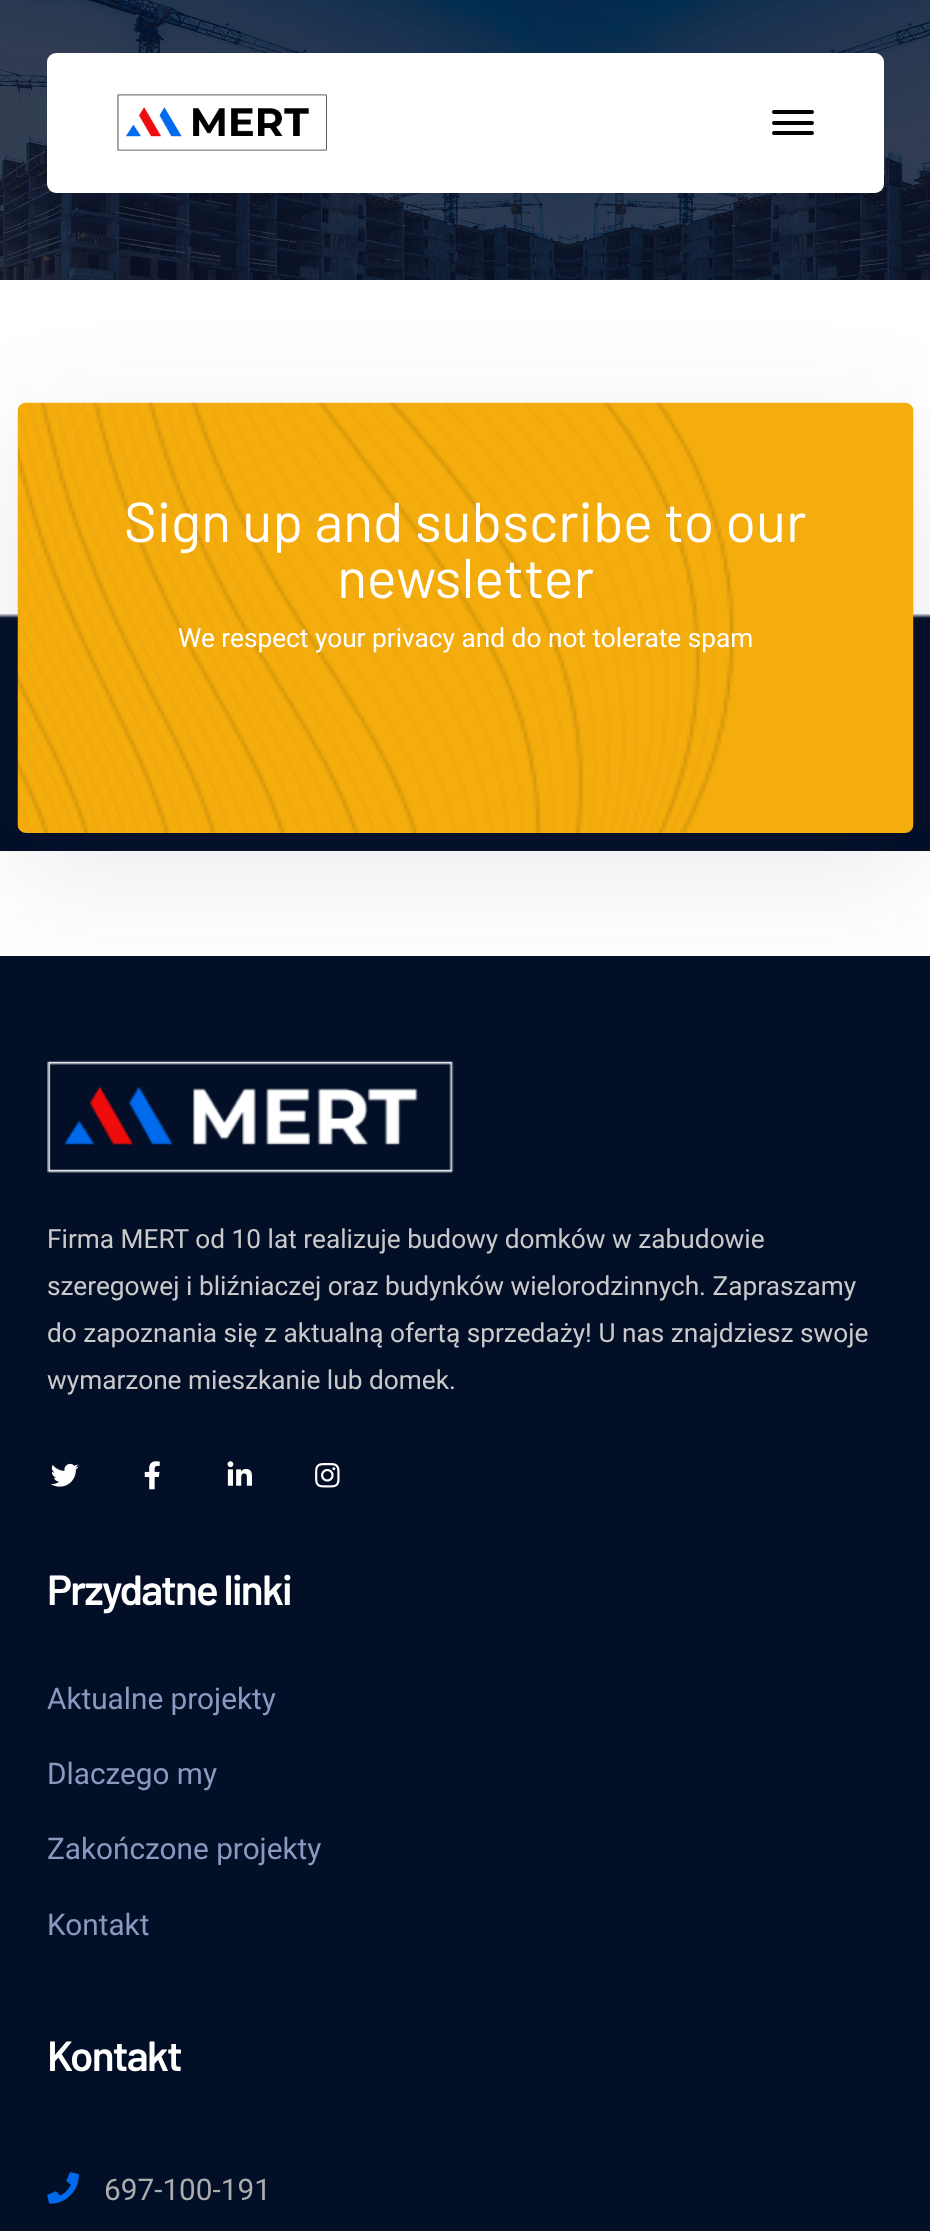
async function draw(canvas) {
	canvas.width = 930;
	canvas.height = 2231;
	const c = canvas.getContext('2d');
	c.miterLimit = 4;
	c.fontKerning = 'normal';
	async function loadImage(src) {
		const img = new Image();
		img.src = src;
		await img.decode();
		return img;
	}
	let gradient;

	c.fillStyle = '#fff';
	c.fillRect(0, 0, 930, 2231);
	c.drawImage(await loadImage('img1.png'), 0, 0, 930, 280);
	c.beginPath();
	c.roundRect(47, 53, 837, 140, 9);
	c.fill();
	c.drawImage(await loadImage('img2.png'), 117, 94, 210, 57);
	c.fillStyle = '#000';
	c.beginPath();
	c.roundRect(772, 110, 42, 4, 2);
	c.fill();
	c.beginPath();
	c.roundRect(772, 121, 42, 4, 2);
	c.fill();
	c.beginPath();
	c.roundRect(772, 131, 42, 4, 2);
	c.fill();
	gradient = c.createLinearGradient(466, 385, 466, 851);
	gradient.addColorStop(0.49, '#fff');
	gradient.addColorStop(0.5, '#030f27');
	c.fillStyle = gradient;
	c.fillRect(0, 613, 930, 238);
	c.fillStyle = '#262a4c1a';
	c.filter = 'blur(61px)';
	c.beginPath();
	c.roundRect(18, 438, 896, 430, 9);
	c.fill();
	c.filter = 'none';
	c.drawImage(await loadImage('img3.png'), 17, 402, 897, 431);
	c.font = '56px Barlow';
	c.fillStyle = '#fff';
	c.fillText('Sign up and subscribe to our', 124, 542);
	c.fillText('newsletter', 337, 598);
	c.font = '26.25px Roboto';
	c.fillText('We respect your privacy and do not tolerate spam', 178, 647);
	c.fillStyle = '#030f27';
	c.fillRect(0, 956, 930, 1275);
	c.drawImage(await loadImage('img4.png'), 47, 1060, 407, 113);
	c.fillStyle = '#cacaca';
	for (const [text, x, y] of [
		['Firma MERT od 10 lat realizuje budowy domków w zabudowie', 47, 1248],
		['szeregowej i bliźniaczej oraz budynków wielorodzinnych. Zapraszamy', 47, 1295],
		['do zapoznania się z aktualną ofertą sprzedaży! U nas znajdziesz swoje', 47, 1342],
		['wymarzone mieszkanie lub domek.', 47, 1389],
	]) {
		c.fillText(text, x, y);
	}
	c.drawImage(await loadImage('img5.png'), 51, 1463, 28, 24);
	c.drawImage(await loadImage('img6.png'), 144, 1461, 16, 29);
	c.drawImage(await loadImage('img7.png'), 227, 1461, 25, 25);
	c.drawImage(await loadImage('img8.png'), 315, 1463, 25, 25);
	c.letterSpacing = '-1.75px';
	c.font = '600 42px Barlow';
	c.fillStyle = '#fff';
	c.fillText('Przydatne linki', 47, 1605);
	c.letterSpacing = '0px';
	c.font = '29.75px Roboto';
	c.fillStyle = '#8a99c0';
	for (const [text, x, y] of [
		['Aktualne projekty', 47, 1709],
		['Dlaczego my', 47, 1784],
		['Zakończone projekty', 47, 1859],
		['Kontakt', 47, 1935],
	]) {
		c.fillText(text, x, y);
	}
	c.letterSpacing = '-1.75px';
	c.font = '600 42px Barlow';
	c.fillStyle = '#fff';
	c.fillText('Kontakt', 47, 2071);
	c.drawImage(await loadImage('img9.png'), 47, 2172, 32, 32);
	c.letterSpacing = '0px';
	c.font = '29.75px Roboto';
	c.fillStyle = '#acacac';
	c.fillText('697-100-191', 104, 2200);
}

draw(document.querySelector('canvas'));
